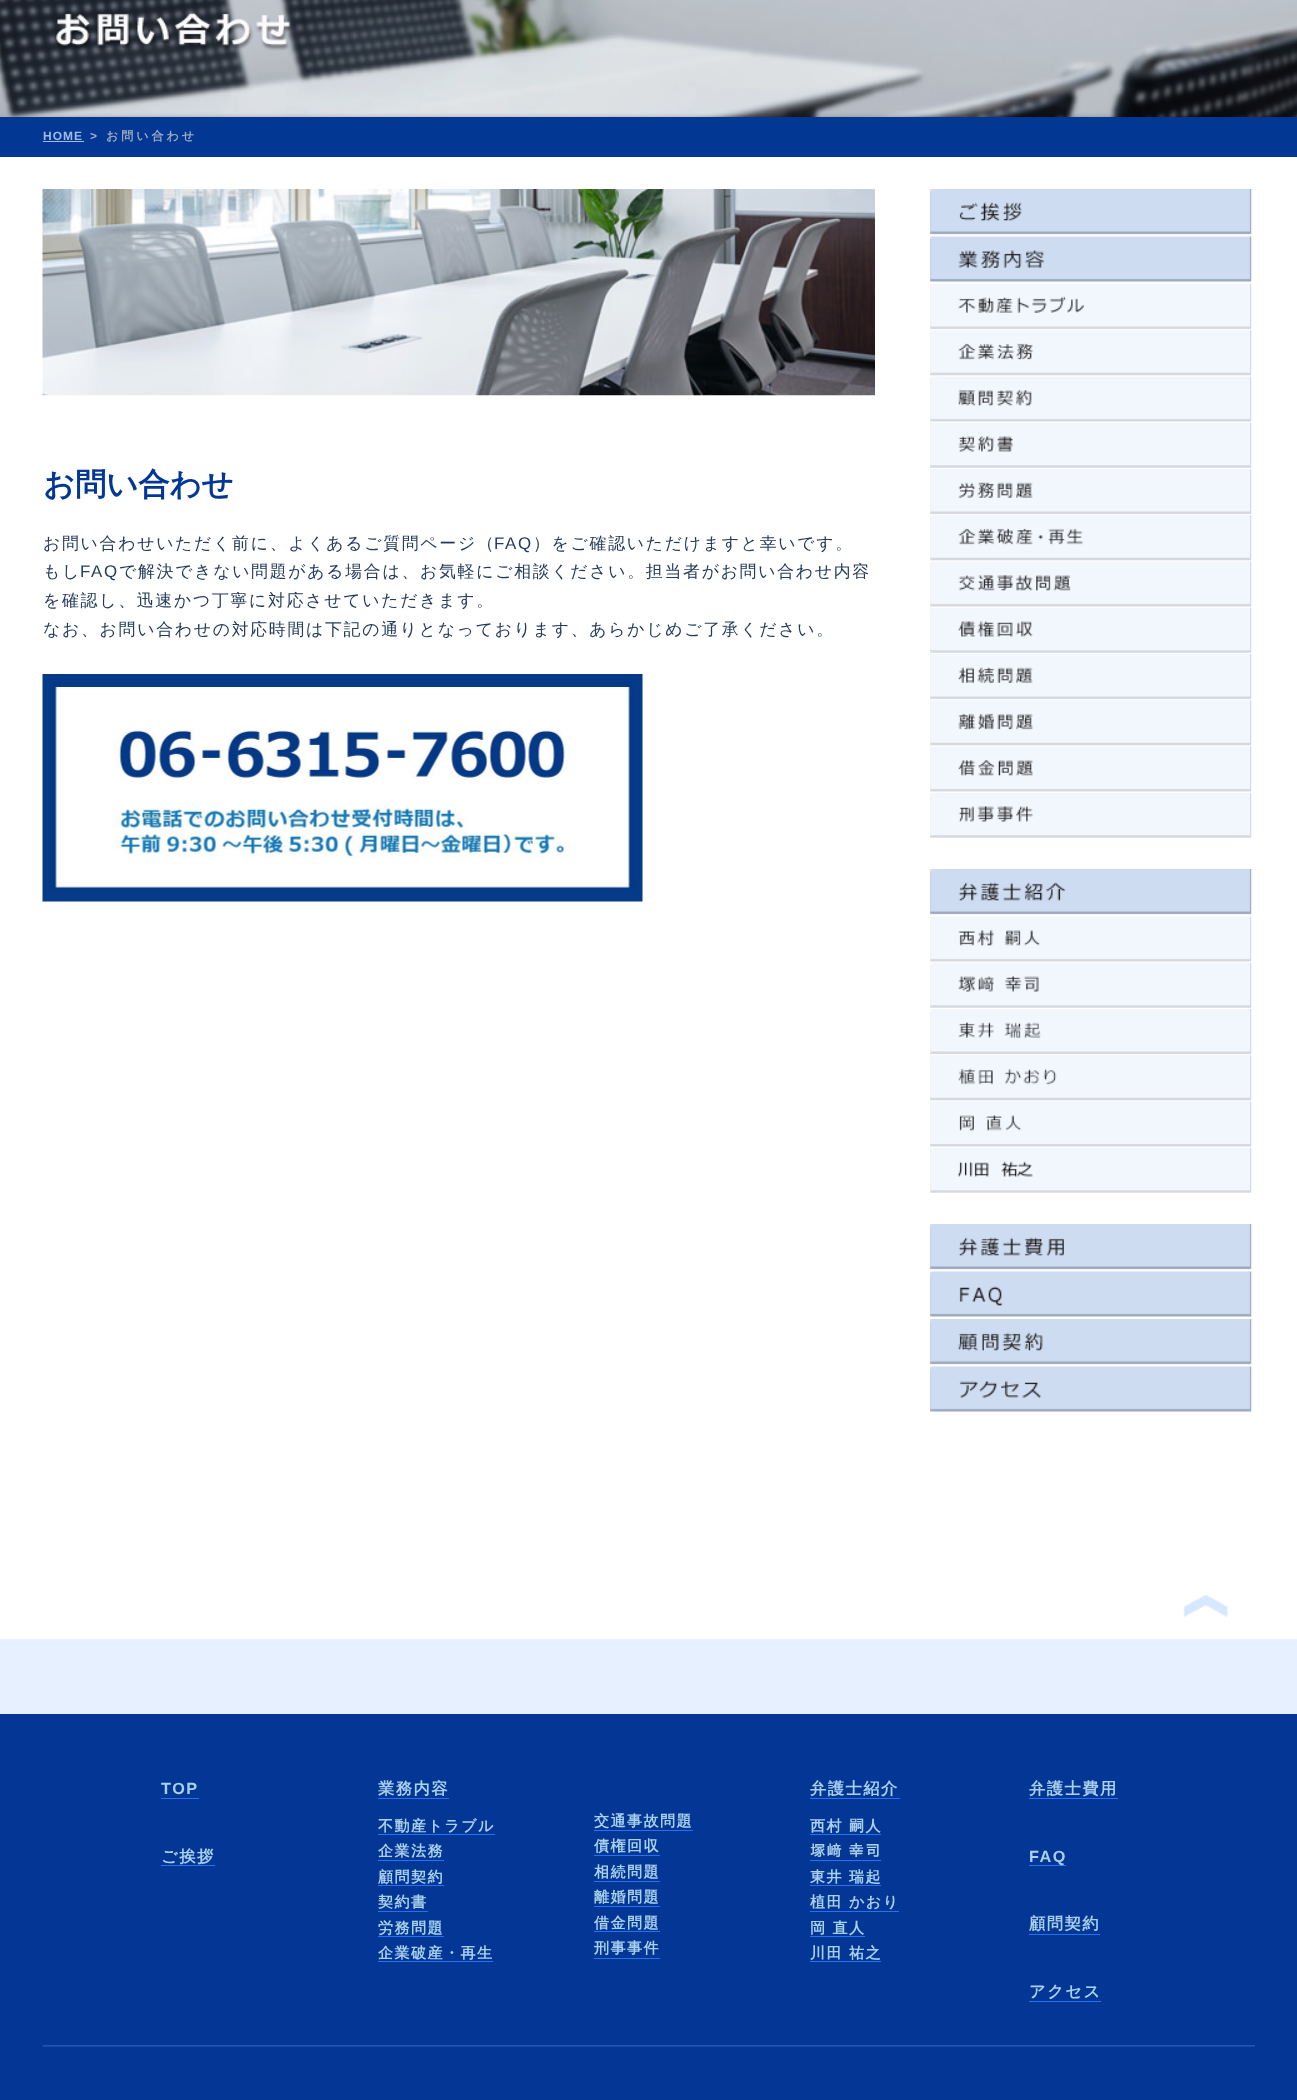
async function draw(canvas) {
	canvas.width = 1297;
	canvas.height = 2100;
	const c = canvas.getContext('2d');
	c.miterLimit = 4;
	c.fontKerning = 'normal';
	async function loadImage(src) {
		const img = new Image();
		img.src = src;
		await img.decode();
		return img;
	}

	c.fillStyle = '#fff';
	c.fillRect(0, 0, 1297, 2100);
	c.drawImage(await loadImage('img1.png'), 0, 0, 1297, 117);
	c.drawImage(await loadImage('img2.png'), 56, 12, 236, 39);
	c.fillStyle = '#023793';
	c.fillRect(0, 117, 1297, 40);
	c.letterSpacing = '1px';
	c.font = 'bold 12px Liberation Sans';
	c.fillStyle = '#a1bbe8';
	c.fillText('HOME', 43, 140);
	c.fillRect(43, 141, 41, 1);
	c.letterSpacing = '3px';
	c.fillStyle = '#a0acbf';
	c.fillText('>', 90, 140);
	c.font = 'bold 12px WenQuanYi Zen Hei';
	c.fillText('お問い合わせ', 106, 140);
	c.drawImage(await loadImage('img3.png'), 42, 189, 833, 207);
	c.letterSpacing = '0px';
	c.font = 'bold 31.25px WenQuanYi Zen Hei';
	c.fillStyle = '#023795';
	c.fillText('お問い合わせ', 43, 495);
	c.letterSpacing = '1.7px';
	c.font = '500 16.9px WenQuanYi Zen Hei';
	c.fillStyle = '#253a5b';
	c.fillText('お問い合わせいただく前に、よくあるご質問ページ（', 43, 549);
	c.font = '16.9px Liberation Sans';
	c.fillText('FAQ', 494, 549);
	c.font = '500 16.9px WenQuanYi Zen Hei';
	c.fillText('）をご確認いただけますと幸いです。', 533, 549);
	c.fillText('もし', 43, 577);
	c.font = '16.9px Liberation Sans';
	c.fillText('FAQ', 80, 577);
	c.font = '500 16.9px WenQuanYi Zen Hei';
	for (const [text, x, y] of [
		['で解決できない問題がある場合は、お気軽にご相談ください。担当者がお問い合わせ内容', 119, 577],
		['を確認し、迅速かつ丁寧に対応させていただきます。', 43, 606],
		['なお、お問い合わせの対応時間は下記の通りとなっております、あらかじめご了承ください。', 43, 635],
	]) {
		c.fillText(text, x, y);
	}
	c.drawImage(await loadImage('img4.png'), 42, 674, 601, 228);
	c.drawImage(await loadImage('img5.png'), 930, 189, 322, 46);
	c.drawImage(await loadImage('img6.png'), 930, 236, 322, 46);
	c.drawImage(await loadImage('img7.png'), 930, 284, 322, 46);
	c.drawImage(await loadImage('img8.png'), 930, 330, 322, 46);
	c.drawImage(await loadImage('img9.png'), 930, 376, 322, 46);
	c.drawImage(await loadImage('img10.png'), 930, 422, 322, 46);
	c.drawImage(await loadImage('img11.png'), 930, 469, 322, 46);
	c.drawImage(await loadImage('img12.png'), 930, 515, 322, 46);
	c.drawImage(await loadImage('img13.png'), 930, 561, 322, 46);
	c.drawImage(await loadImage('img14.png'), 930, 607, 322, 46);
	c.drawImage(await loadImage('img15.png'), 930, 654, 322, 46);
	c.drawImage(await loadImage('img16.png'), 930, 700, 322, 46);
	c.drawImage(await loadImage('img17.png'), 930, 746, 322, 46);
	c.drawImage(await loadImage('img18.png'), 930, 792, 322, 46);
	c.drawImage(await loadImage('img19.png'), 930, 869, 322, 46);
	c.drawImage(await loadImage('img20.png'), 930, 916, 322, 46);
	c.drawImage(await loadImage('img21.png'), 930, 962, 322, 46);
	c.drawImage(await loadImage('img22.png'), 930, 1009, 322, 46);
	c.drawImage(await loadImage('img23.png'), 930, 1055, 322, 46);
	c.drawImage(await loadImage('img24.png'), 930, 1101, 322, 46);
	c.drawImage(await loadImage('img25.png'), 930, 1147, 322, 46);
	c.drawImage(await loadImage('img26.png'), 930, 1224, 322, 46);
	c.drawImage(await loadImage('img27.png'), 930, 1271, 322, 46);
	c.drawImage(await loadImage('img28.png'), 930, 1319, 322, 46);
	c.drawImage(await loadImage('img29.png'), 930, 1366, 322, 46);
	c.drawImage(await loadImage('img30.png'), 1183, 1595, 45, 23);
	c.fillStyle = '#e7f0fe';
	c.fillRect(0, 1639, 1297, 75);
	c.fillStyle = '#043695';
	c.fillRect(0, 1714, 1297, 386);
	c.letterSpacing = '1.5px';
	c.font = 'bold 16.25px Liberation Sans';
	c.fillStyle = '#a8d1ee';
	c.fillText('TOP', 161, 1794);
	c.fillStyle = '#2073f6';
	c.fillRect(161, 1798, 38, 1);
	c.font = 'bold 16.25px WenQuanYi Zen Hei';
	c.fillStyle = '#a8d1ee';
	c.fillText('ご挨拶', 161, 1862);
	c.fillStyle = '#2073f6';
	c.fillRect(161, 1865, 54, 1);
	c.fillStyle = '#a8d1ee';
	c.fillText('業務内容', 378, 1794);
	c.fillStyle = '#2073f6';
	c.fillRect(378, 1798, 71, 1);
	c.font = 'bold 15px WenQuanYi Zen Hei';
	c.fillStyle = '#a8d1ee';
	c.fillText('不動産トラブル', 378, 1831);
	c.fillStyle = '#2073f6';
	c.fillRect(378, 1834, 117, 1);
	c.fillStyle = '#a8d1ee';
	c.fillText('企業法務', 378, 1856);
	c.fillStyle = '#2073f6';
	c.fillRect(378, 1860, 66, 1);
	c.fillStyle = '#a8d1ee';
	c.fillText('顧問契約', 378, 1882);
	c.fillStyle = '#2073f6';
	c.fillRect(378, 1885, 66, 1);
	c.fillStyle = '#a8d1ee';
	c.fillText('契約書', 378, 1907);
	c.fillStyle = '#2073f6';
	c.fillRect(378, 1911, 50, 1);
	c.fillStyle = '#a8d1ee';
	c.fillText('労務問題', 378, 1933);
	c.fillStyle = '#2073f6';
	c.fillRect(378, 1936, 66, 1);
	c.fillStyle = '#a8d1ee';
	c.fillText('企業破産・再生', 378, 1958);
	c.fillStyle = '#2073f6';
	c.fillRect(378, 1961, 115, 1);
	c.fillStyle = '#a8d1ee';
	c.fillText('交通事故問題', 594, 1826);
	c.fillStyle = '#2073f6';
	c.fillRect(594, 1830, 99, 1);
	c.fillStyle = '#a8d1ee';
	c.fillText('債権回収', 594, 1851);
	c.fillStyle = '#2073f6';
	c.fillRect(594, 1855, 66, 1);
	c.fillStyle = '#a8d1ee';
	c.fillText('相続問題', 594, 1877);
	c.fillStyle = '#2073f6';
	c.fillRect(594, 1881, 66, 1);
	c.fillStyle = '#a8d1ee';
	c.fillText('離婚問題', 594, 1902);
	c.fillStyle = '#2073f6';
	c.fillRect(594, 1906, 66, 1);
	c.fillStyle = '#a8d1ee';
	c.fillText('借金問題', 594, 1928);
	c.fillStyle = '#2073f6';
	c.fillRect(594, 1931, 66, 1);
	c.fillStyle = '#a8d1ee';
	c.fillText('刑事事件', 594, 1953);
	c.fillStyle = '#2073f6';
	c.fillRect(594, 1958, 66, 1);
	c.font = 'bold 16.25px WenQuanYi Zen Hei';
	c.fillStyle = '#a8d1ee';
	c.fillText('弁護士紹介', 810, 1794);
	c.fillStyle = '#2073f6';
	c.fillRect(810, 1798, 90, 1);
	c.font = 'bold 15px WenQuanYi Zen Hei';
	c.fillStyle = '#a8d1ee';
	c.fillText('西村 嗣人', 810, 1831);
	c.fillStyle = '#2073f6';
	c.fillRect(810, 1834, 71, 1);
	c.font = 'bold 15px IPAPGothic';
	c.fillStyle = '#a8d1ee';
	c.fillText('塚﨑 幸司', 810, 1856);
	c.fillStyle = '#2073f6';
	c.fillRect(810, 1860, 71, 1);
	c.font = 'bold 15px WenQuanYi Zen Hei';
	c.fillStyle = '#a8d1ee';
	c.fillText('東井 瑞起', 810, 1882);
	c.fillStyle = '#2073f6';
	c.fillRect(810, 1885, 71, 1);
	c.fillStyle = '#a8d1ee';
	c.fillText('植田 かおり', 810, 1907);
	c.fillStyle = '#2073f6';
	c.fillRect(810, 1911, 89, 1);
	c.fillStyle = '#a8d1ee';
	c.fillText('岡 直人', 810, 1933);
	c.fillStyle = '#2073f6';
	c.fillRect(810, 1936, 55, 1);
	c.fillStyle = '#a8d1ee';
	c.fillText('川田 祐之', 810, 1958);
	c.fillStyle = '#2073f6';
	c.fillRect(810, 1961, 71, 1);
	c.font = 'bold 16.25px WenQuanYi Zen Hei';
	c.fillStyle = '#a8d1ee';
	c.fillText('弁護士費用', 1029, 1794);
	c.fillStyle = '#2073f6';
	c.fillRect(1029, 1798, 89, 1);
	c.fillRect(1029, 1865, 37, 1);
	c.font = 'bold 16.25px Liberation Sans';
	c.fillStyle = '#a8d1ee';
	c.fillText('FAQ', 1029, 1862);
	c.font = 'bold 16.25px WenQuanYi Zen Hei';
	c.fillText('顧問契約', 1029, 1929);
	c.fillStyle = '#2073f6';
	c.fillRect(1029, 1934, 71, 1);
	c.fillStyle = '#a8d1ee';
	c.fillText('アクセス', 1029, 1997);
	c.fillStyle = '#2073f6';
	c.fillRect(1029, 2001, 72, 1);
	c.drawImage(await loadImage('img31.png'), 42, 2045, 1213, 2);
}

draw(document.querySelector('canvas'));
